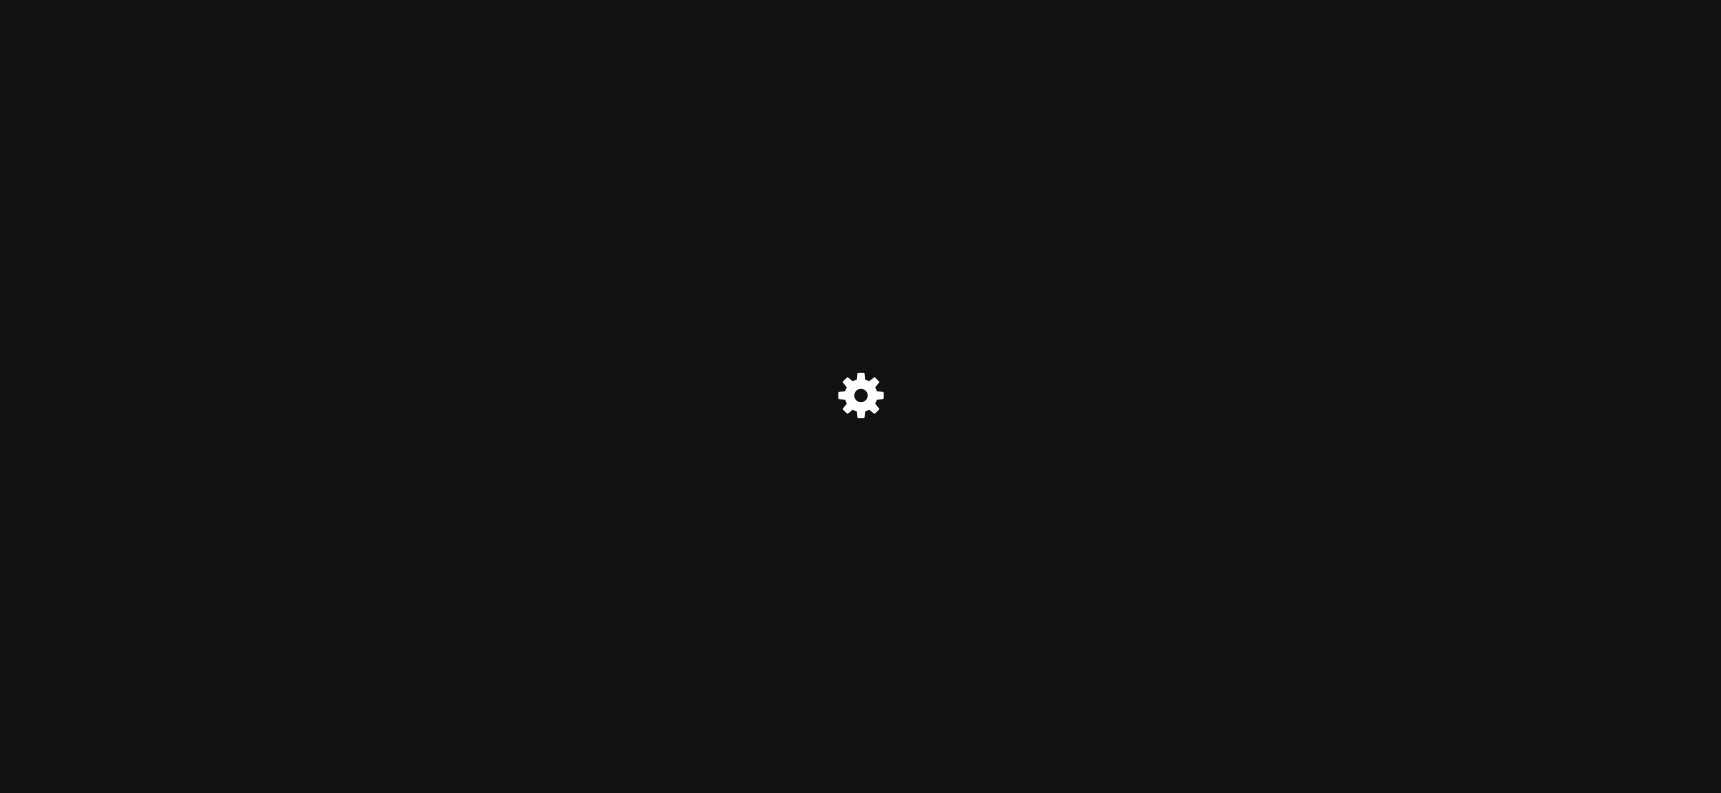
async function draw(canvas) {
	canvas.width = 1721;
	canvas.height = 793;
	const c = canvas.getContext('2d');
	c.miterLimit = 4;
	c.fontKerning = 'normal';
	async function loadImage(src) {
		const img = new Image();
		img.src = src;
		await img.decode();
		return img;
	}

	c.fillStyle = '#111';
	c.fillRect(0, 0, 1721, 793);
	c.drawImage(await loadImage('img1.png'), 838, 372, 46, 47);
}

draw(document.querySelector('canvas'));
